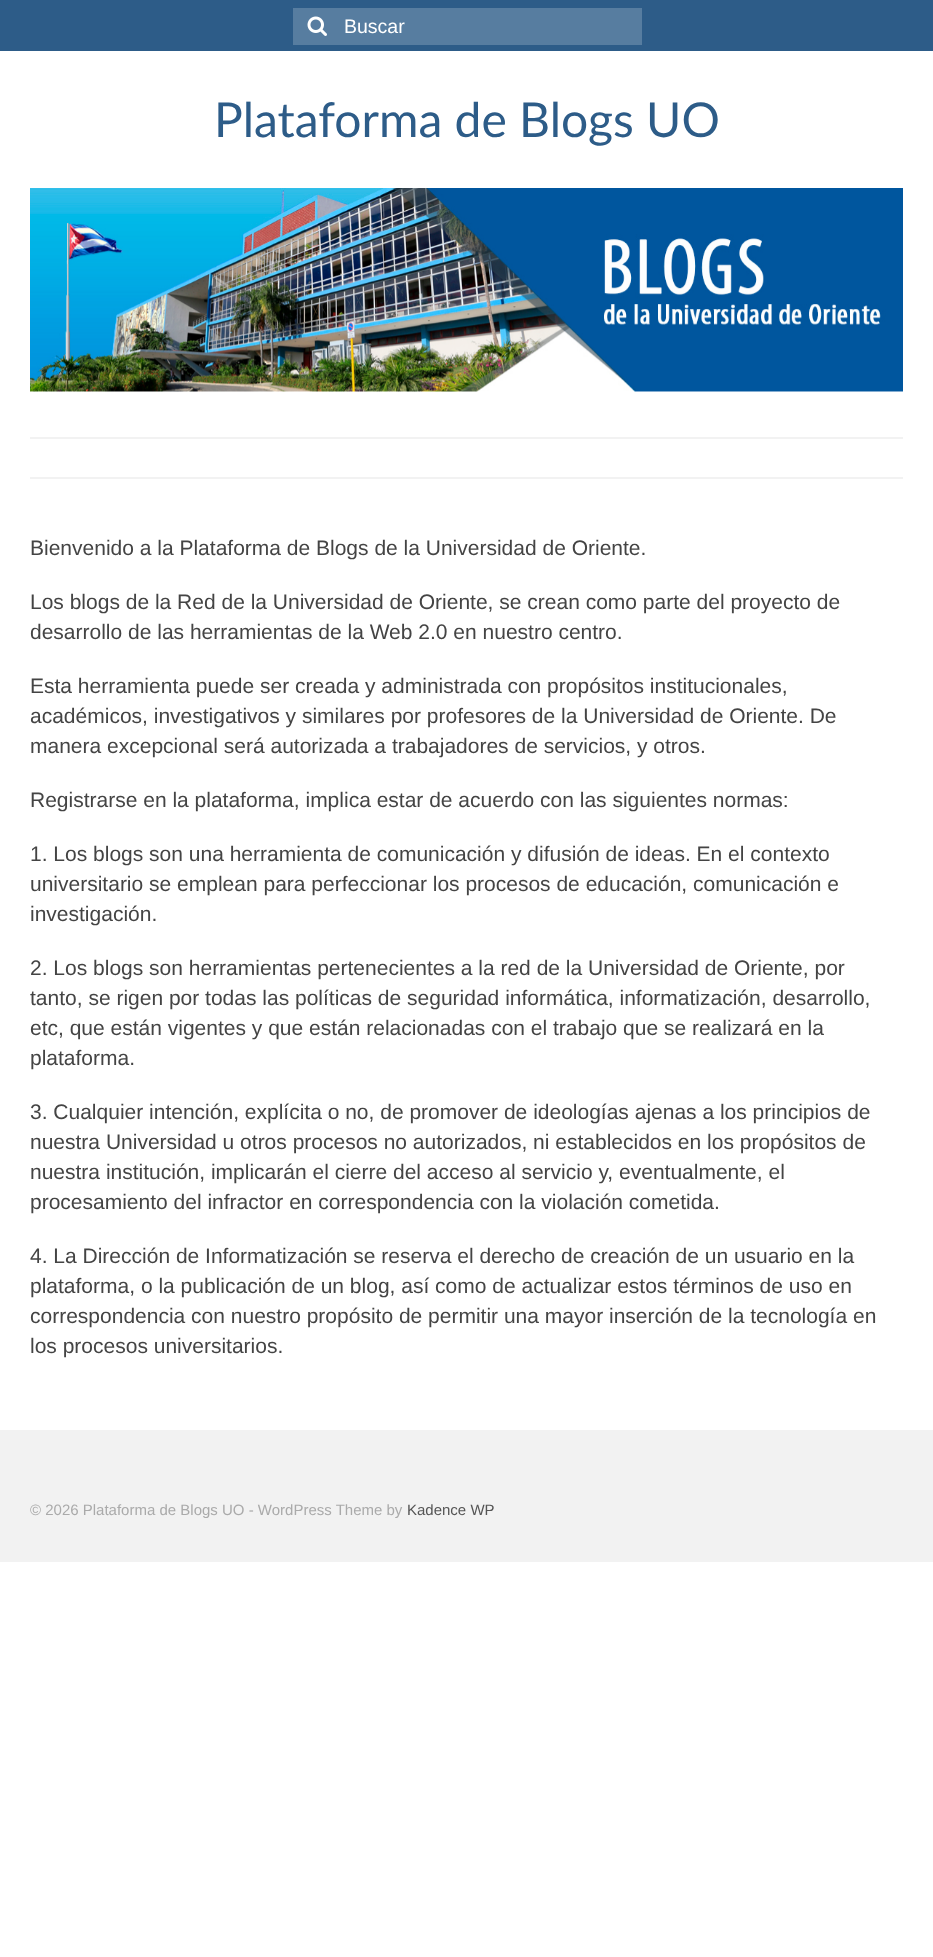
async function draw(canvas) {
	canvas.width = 933;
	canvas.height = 1957;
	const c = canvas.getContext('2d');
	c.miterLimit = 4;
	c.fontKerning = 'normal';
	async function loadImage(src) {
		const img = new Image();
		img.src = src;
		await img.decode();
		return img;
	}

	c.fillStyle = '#fff';
	c.fillRect(0, 0, 933, 1957);
	c.fillStyle = '#2d5c88';
	c.fillRect(0, 0, 933, 51);
	c.fillStyle = '#577da0';
	c.fillRect(293, 8, 349, 37);
	c.drawImage(await loadImage('img1.png'), 307, 16, 20, 20);
	c.font = '19.5px Liberation Sans';
	c.fillStyle = '#fff';
	c.fillText('Buscar', 344, 33);
	c.font = '48px Lato';
	c.fillStyle = '#2d5c88';
	c.fillText('Plataforma de Blogs UO', 214, 137);
	c.drawImage(await loadImage('img2.png'), 30, 188, 873, 204);
	c.fillStyle = '#f2f2f2';
	c.fillRect(30, 437, 873, 2);
	c.fillRect(30, 477, 873, 2);
	c.font = '21px Liberation Sans';
	c.fillStyle = '#444';
	for (const [text, x, y] of [
		['Bienvenido a la Plataforma de Blogs de la Universidad de Oriente.', 30, 555],
		['Los blogs de la Red de la Universidad de Oriente, se crean como parte del proyecto de', 30, 609],
		['desarrollo de las herramientas de la Web 2.0 en nuestro centro.', 30, 639],
		['Esta herramienta puede ser creada y administrada con propósitos institucionales,', 30, 693],
		['académicos, investigativos y similares por profesores de la Universidad de Oriente. De', 30, 723],
		['manera excepcional será autorizada a trabajadores de servicios, y otros.', 30, 753],
		['Registrarse en la plataforma, implica estar de acuerdo con las siguientes normas:', 30, 807],
		['1. Los blogs son una herramienta de comunicación y difusión de ideas. En el contexto', 30, 861],
		['universitario se emplean para perfeccionar los procesos de educación, comunicación e', 30, 891],
		['investigación.', 30, 921],
		['2. Los blogs son herramientas pertenecientes a la red de la Universidad de Oriente, por', 30, 975],
		['tanto, se rigen por todas las políticas de seguridad informática, informatización, desarrollo,', 30, 1005],
		['etc, que están vigentes y que están relacionadas con el trabajo que se realizará en la', 30, 1035],
		['plataforma.', 30, 1065],
		['3. Cualquier intención, explícita o no, de promover de ideologías ajenas a los principios de', 30, 1119],
		['nuestra Universidad u otros procesos no autorizados, ni establecidos en los propósitos de', 30, 1149],
		['nuestra institución, implicarán el cierre del acceso al servicio y, eventualmente, el', 30, 1179],
		['procesamiento del infractor en correspondencia con la violación cometida.', 30, 1209],
		['4. La Dirección de Informatización se reserva el derecho de creación de un usuario en la', 30, 1263],
		['plataforma, o la publicación de un blog, así como de actualizar estos términos de uso en', 30, 1293],
		['correspondencia con nuestro propósito de permitir una mayor inserción de la tecnología en', 30, 1323],
		['los procesos universitarios.', 30, 1353],
	]) {
		c.fillText(text, x, y);
	}
	c.fillStyle = '#f2f2f2';
	c.fillRect(0, 1430, 933, 132);
	c.font = '15px Liberation Sans';
	c.fillStyle = '#aaa';
	c.fillText('© 2026 Plataforma de Blogs UO - WordPress Theme by', 30, 1515);
	c.fillStyle = '#555';
	c.fillText('Kadence WP', 407, 1515);
}

draw(document.querySelector('canvas'));
